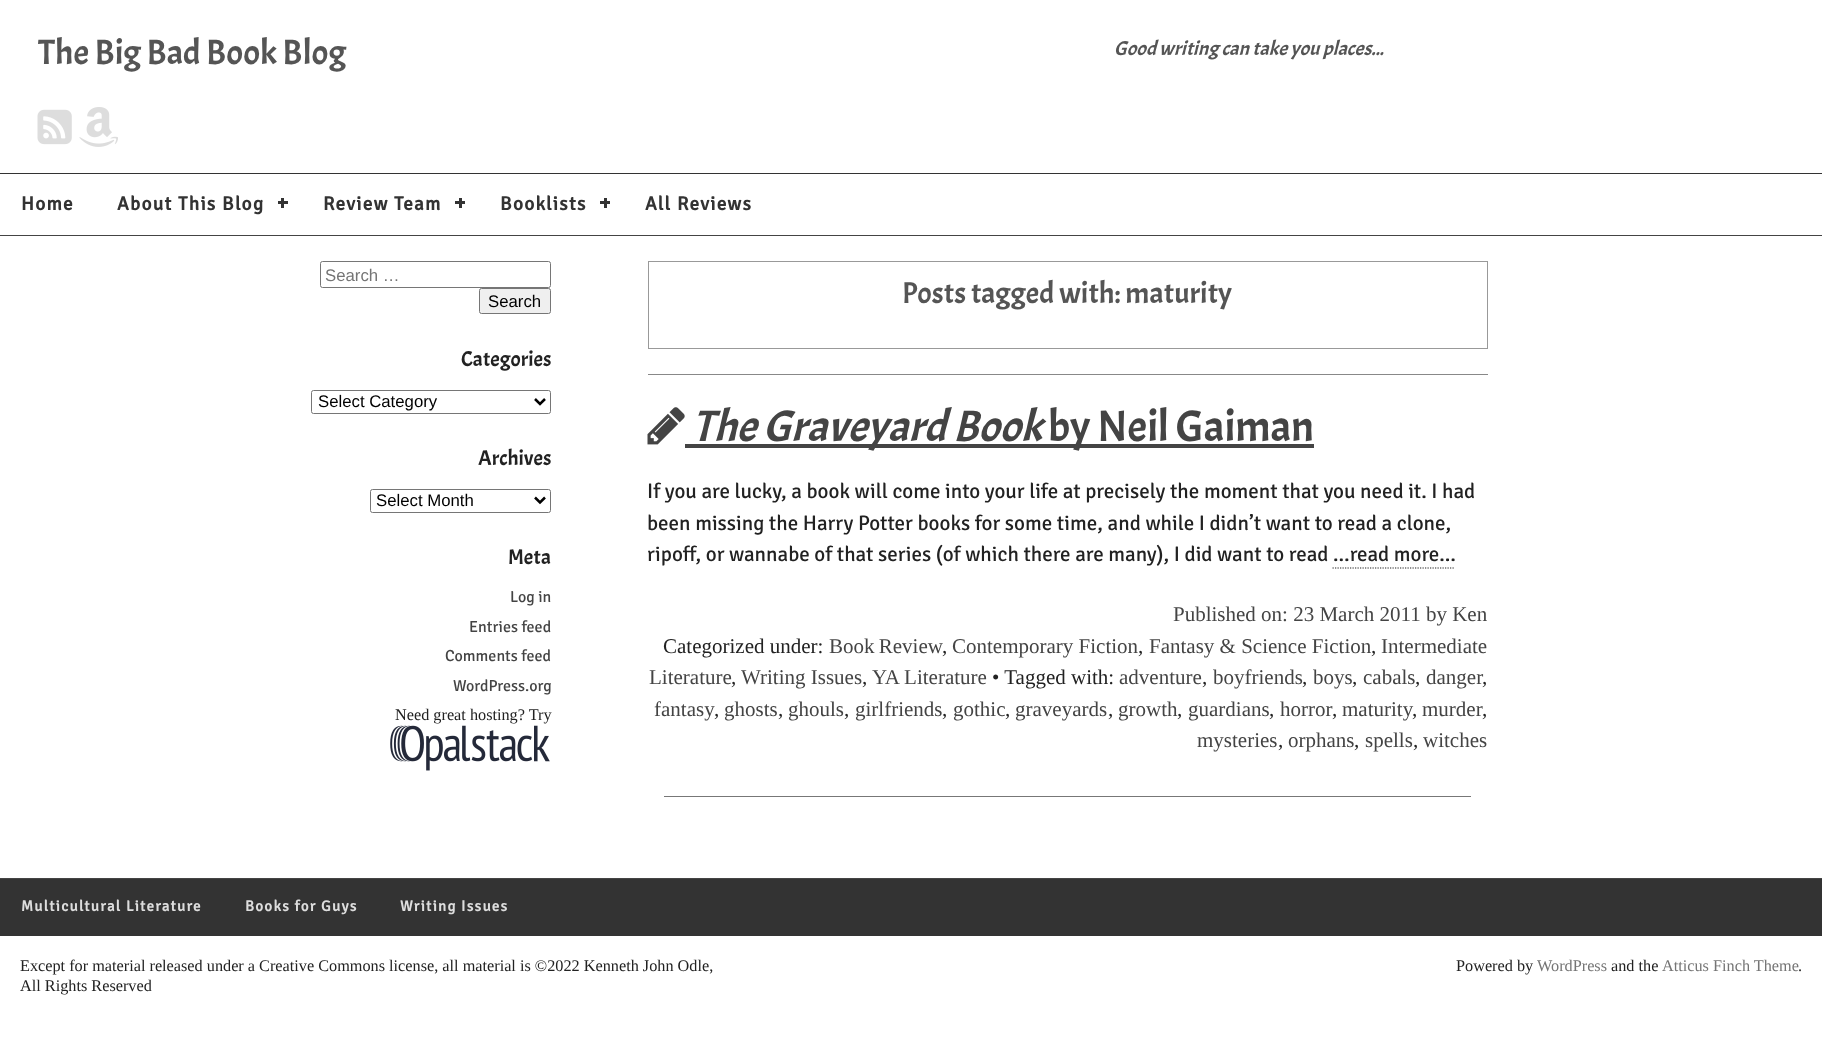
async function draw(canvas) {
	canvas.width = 1822;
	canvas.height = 1053;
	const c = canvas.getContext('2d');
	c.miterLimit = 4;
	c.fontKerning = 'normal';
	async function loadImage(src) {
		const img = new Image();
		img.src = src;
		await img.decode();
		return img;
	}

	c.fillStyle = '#fff';
	c.fillRect(0, 0, 1822, 1053);
	c.fillStyle = '#444';
	c.fillRect(0, 235, 1822, 1);
	c.font = '35px Acme';
	c.fillStyle = '#555';
	c.fillText('The Big Bad Book Blog', 38, 64);
	c.font = 'italic 20px Acme';
	c.fillText('Good writing can take you places...', 1114, 55);
	c.drawImage(await loadImage('img1.png'), 37, 109, 35, 36);
	c.drawImage(await loadImage('img2.png'), 79, 107, 39, 40);
	c.fillStyle = '#333';
	c.fillRect(0, 173, 1822, 1);
	c.letterSpacing = '1.25px';
	c.font = 'bold 19.25px Signika';
	c.fillText('Home', 21, 210);
	c.fillText('About This Blog', 117, 210);
	c.fillRect(281, 198, 3, 10);
	c.fillRect(278, 201, 10, 3);
	c.fillText('Review Team', 323, 210);
	c.fillRect(459, 198, 3, 10);
	c.fillRect(455, 201, 10, 3);
	c.fillText('Booklists', 500, 210);
	c.fillRect(604, 198, 3, 10);
	c.fillRect(600, 201, 10, 3);
	c.fillText('All Reviews', 645, 210);
	c.beginPath();
	c.roundRect(320.5, 261.5, 230, 26, 2);
	c.strokeStyle = '#767676';
	c.stroke();
	c.letterSpacing = '0px';
	c.font = '16.75px Liberation Sans';
	c.fillStyle = '#757575';
	c.fillText('Search …', 325, 281);
	c.fillStyle = '#efefef';
	c.beginPath();
	c.roundRect(479.5, 288.5, 71, 25, 2);
	c.fill();
	c.stroke();
	c.fillStyle = '#000';
	c.fillText('Search', 488, 307);
	c.font = '21.25px Acme';
	c.fillStyle = '#222';
	c.fillText('Categories', 461, 366);
	c.beginPath();
	c.roundRect(311.5, 390.5, 239, 23, 2);
	c.stroke();
	c.beginPath();
	c.moveTo(535, 399);
	c.lineTo(540, 404);
	c.lineTo(545, 399);
	c.strokeStyle = '#000';
	c.lineWidth = 2.5;
	c.stroke();
	c.font = '16.75px Liberation Sans';
	c.fillStyle = '#000';
	c.fillText('Select Category', 318, 407);
	c.font = '21.25px Acme';
	c.fillStyle = '#222';
	c.fillText('Archives', 478, 465);
	c.beginPath();
	c.roundRect(370.5, 489.5, 180, 23, 2);
	c.strokeStyle = '#767676';
	c.lineWidth = 1;
	c.stroke();
	c.beginPath();
	c.moveTo(535, 497.5);
	c.lineTo(540, 502.5);
	c.lineTo(545, 497.5);
	c.strokeStyle = '#000';
	c.lineWidth = 2.5;
	c.stroke();
	c.font = '16.75px Liberation Sans';
	c.fillStyle = '#000';
	c.fillText('Select Month', 376, 506);
	c.font = '21.25px Acme';
	c.fillStyle = '#222';
	c.fillText('Meta', 508, 564);
	c.font = '300 16px Signika';
	c.fillStyle = '#444';
	for (const [text, x, y] of [
		['Log in', 510, 602],
		['Entries feed', 469, 632],
		['Comments feed', 445, 661],
		['WordPress.org', 453, 691],
	]) {
		c.fillText(text, x, y);
	}
	c.font = '16.25px Liberation Serif';
	c.fillStyle = '#222';
	c.fillText('Need great hosting? Try', 395, 720);
	c.drawImage(await loadImage('img3.png'), 390, 725, 160, 46);
	c.strokeStyle = '#999';
	c.lineWidth = 1;
	c.strokeRect(648.5, 261.5, 839, 87);
	c.font = '30px Acme';
	c.fillStyle = '#555';
	c.fillText('Posts tagged with: maturity', 902, 303);
	c.fillStyle = '#888';
	c.fillRect(648, 374, 840, 1);
	c.drawImage(await loadImage('img4.png'), 647, 407, 38, 38);
	c.fillStyle = '#444';
	c.fillRect(685, 444, 356, 4);
	c.font = 'italic 44px Acme';
	c.fillText('The Graveyard Book', 692, 441);
	c.fillRect(1041, 444, 273, 4);
	c.font = '44px Acme';
	c.fillText('by Neil Gaiman', 1048, 441);
	c.font = '300 21px Signika';
	c.fillStyle = '#222';
	for (const [text, x, y] of [
		['If you are lucky, a book will come into your life at precisely the moment that you need it. I had', 647, 498],
		['been missing the Harry Potter books for some time, and while I didn’t want to read a clone,', 647, 530],
		['ripoff, or wannabe of that series (of which there are many), I did want to read …read more…', 647, 561],
	]) {
		c.fillText(text, x, y);
	}
	c.beginPath();
	c.moveTo(1332.5, 568);
	c.lineTo(1455, 568);
	c.strokeStyle = '#222';
	c.lineWidth = 1.2;
	c.setLineDash([1.25, 1.25]);
	c.stroke();
	c.font = '21px Liberation Serif';
	c.fillStyle = '#444';
	c.fillText('Published on: 23 March 2011 by Ken', 1173, 621);
	c.fillStyle = '#222';
	c.fillText('Categorized under:', 663, 653);
	c.wordSpacing = '-1px';
	c.fillStyle = '#444';
	c.fillText('Book Review', 829, 653);
	c.wordSpacing = '0px';
	c.fillStyle = '#222';
	c.fillText(',', 942, 653);
	c.fillStyle = '#444';
	c.fillText('Contemporary Fiction', 952, 653);
	c.fillStyle = '#222';
	c.fillText(',', 1138, 653);
	c.fillStyle = '#444';
	c.fillText('Fantasy & Science Fiction', 1149, 653);
	c.fillStyle = '#222';
	c.fillText(',', 1371, 653);
	c.fillStyle = '#444';
	c.fillText('Intermediate', 1381, 653);
	c.fillText('Literature', 649, 684);
	c.fillStyle = '#222';
	c.fillText(',', 731, 684);
	c.fillStyle = '#444';
	c.fillText('Writing Issues', 741, 684);
	c.fillStyle = '#222';
	c.fillText(',', 862, 684);
	c.fillStyle = '#444';
	c.fillText('YA Literature', 872, 684);
	c.fillStyle = '#222';
	c.fillText('• Tagged with:', 992, 684);
	c.fillStyle = '#444';
	c.fillText('adventure', 1119, 684);
	c.fillStyle = '#222';
	c.fillText(',', 1202, 684);
	c.fillStyle = '#444';
	c.fillText('boyfriends', 1213, 684);
	c.fillStyle = '#222';
	c.fillText(',', 1302, 684);
	c.fillStyle = '#444';
	c.fillText('boys', 1313, 684);
	c.fillStyle = '#222';
	c.fillText(',', 1352, 684);
	c.fillStyle = '#444';
	c.fillText('cabals', 1363, 684);
	c.fillStyle = '#222';
	c.fillText(',', 1415, 684);
	c.fillStyle = '#444';
	c.fillText('danger', 1426, 684);
	c.fillStyle = '#222';
	c.fillText(',', 1482, 684);
	c.fillStyle = '#444';
	c.fillText('fantasy', 654, 716);
	c.fillStyle = '#222';
	c.fillText(',', 714, 716);
	c.fillStyle = '#444';
	c.fillText('ghosts', 724, 716);
	c.fillStyle = '#222';
	c.fillText(',', 778, 716);
	c.fillStyle = '#444';
	c.fillText('ghouls', 788, 716);
	c.fillStyle = '#222';
	c.fillText(',', 844, 716);
	c.fillStyle = '#444';
	c.fillText('girlfriends', 855, 716);
	c.fillStyle = '#222';
	c.fillText(',', 942, 716);
	c.fillStyle = '#444';
	c.fillText('gothic', 953, 716);
	c.fillStyle = '#222';
	c.fillText(',', 1005, 716);
	c.fillStyle = '#444';
	c.fillText('graveyards', 1015, 716);
	c.fillStyle = '#222';
	c.fillText(',', 1108, 716);
	c.fillStyle = '#444';
	c.fillText('growth', 1118, 716);
	c.fillStyle = '#222';
	c.fillText(',', 1177, 716);
	c.fillStyle = '#444';
	c.fillText('guardians', 1188, 716);
	c.fillStyle = '#222';
	c.fillText(',', 1269, 716);
	c.fillStyle = '#444';
	c.fillText('horror', 1280, 716);
	c.fillStyle = '#222';
	c.fillText(',', 1332, 716);
	c.fillStyle = '#444';
	c.fillText('maturity', 1342, 716);
	c.fillText('murder', 1422, 716);
	c.fillStyle = '#222';
	c.fillText(',', 1412, 716);
	c.fillText(',', 1482, 716);
	c.fillStyle = '#444';
	c.fillText('mysteries', 1197, 747);
	c.fillStyle = '#222';
	c.fillText(',', 1278, 747);
	c.fillStyle = '#444';
	c.fillText('orphans', 1288, 747);
	c.fillStyle = '#222';
	c.fillText(',', 1354, 747);
	c.fillStyle = '#444';
	c.fillText('spells', 1365, 747);
	c.fillStyle = '#222';
	c.fillText(',', 1413, 747);
	c.fillStyle = '#444';
	c.fillText('witches', 1423, 747);
	for (const [x, y, w, h, color] of [
		[664, 796, 807, 1, '#777'],
		[0, 878, 1822, 1, '#444'],
		[0, 879, 1822, 57, '#333'],
	]) {
		c.fillStyle = color;
		c.fillRect(x, y, w, h);
	}
	c.letterSpacing = '1.25px';
	c.font = 'bold 15px Signika';
	c.fillStyle = '#ddd';
	for (const [text, x, y] of [
		['Multicultural Literature', 21, 911],
		['Books for Guys', 245, 911],
		['Writing Issues', 400, 911],
	]) {
		c.fillText(text, x, y);
	}
	c.letterSpacing = '0px';
	c.font = '16.25px Liberation Serif';
	c.fillStyle = '#222';
	for (const [text, x, y] of [
		['Except for material released under a Creative Commons license, all material is ©2022 Kenneth John Odle,', 20, 971],
		['All Rights Reserved', 20, 991],
		['Powered by', 1456, 971],
	]) {
		c.fillText(text, x, y);
	}
	c.fillStyle = '#757575';
	c.fillText('WordPress', 1537, 971);
	c.fillStyle = '#222';
	c.fillText('and the', 1611, 971);
	c.fillStyle = '#757575';
	c.fillText('Atticus Finch Theme', 1662, 971);
	c.fillStyle = '#222';
	c.fillText('.', 1798, 971);
}

draw(document.querySelector('canvas'));
